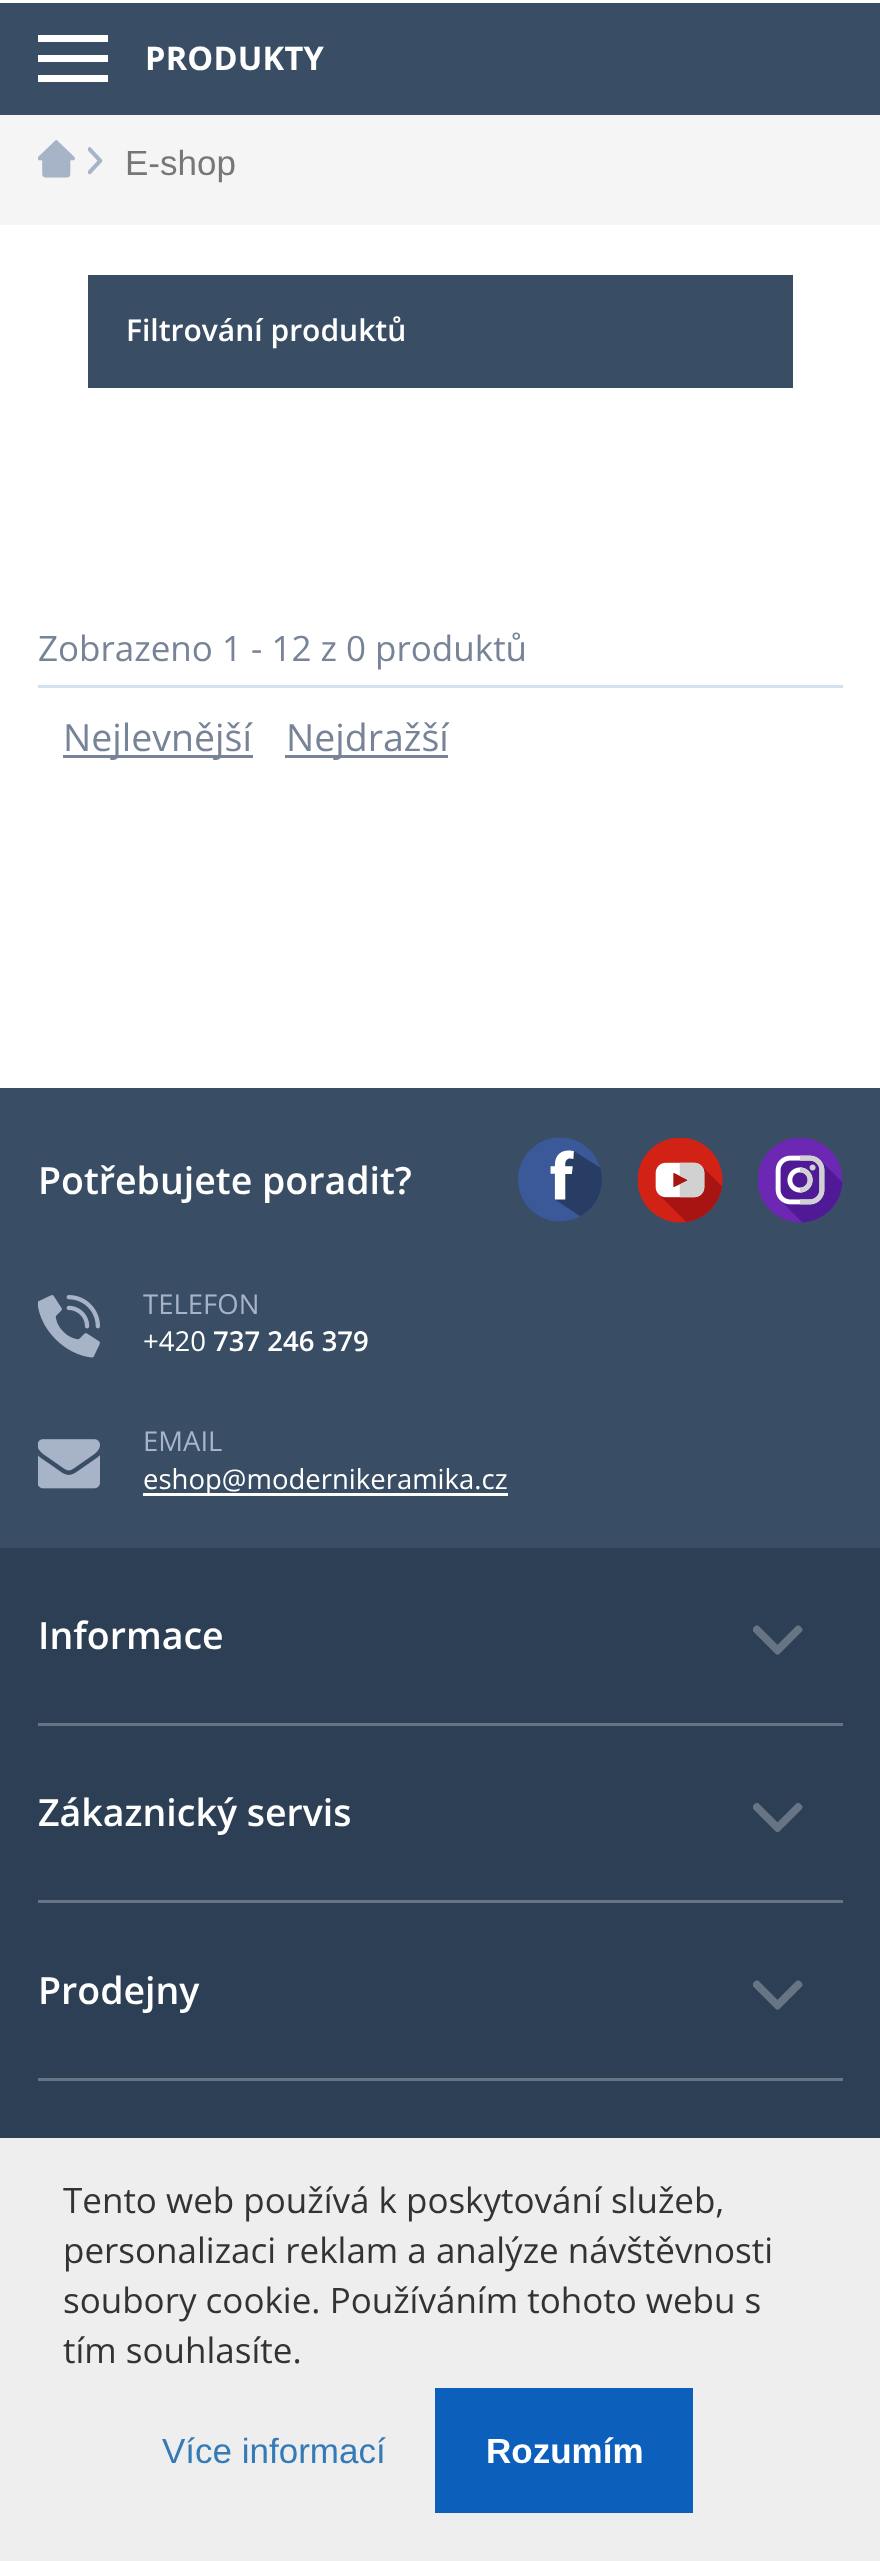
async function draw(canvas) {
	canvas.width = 880;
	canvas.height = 2561;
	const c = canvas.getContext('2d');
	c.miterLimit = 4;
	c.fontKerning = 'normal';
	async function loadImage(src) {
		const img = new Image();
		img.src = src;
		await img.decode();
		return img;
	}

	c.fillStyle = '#fff';
	c.fillRect(0, 0, 880, 2561);
	for (const [x, y, w, h, color] of [
		[0, 3, 880, 112, '#394d64'],
		[38, 35, 70, 7, '#fff'],
		[38, 55, 70, 7, '#fff'],
		[38, 75, 70, 7, '#fff'],
	]) {
		c.fillStyle = color;
		c.fillRect(x, y, w, h);
	}
	c.letterSpacing = '0.25px';
	c.font = 'bold 32.5px Open Sans';
	c.fillText('PRODUKTY', 145, 70);
	c.fillStyle = '#f5f5f5';
	c.fillRect(0, 115, 880, 110);
	c.drawImage(await loadImage('img1.png'), 38, 140, 37, 38);
	c.drawImage(await loadImage('img2.png'), 88, 147, 15, 28);
	c.letterSpacing = '0px';
	c.font = '35px Liberation Sans';
	c.fillStyle = '#777';
	c.fillText('E-shop', 125, 175);
	c.fillStyle = '#394d64';
	c.fillRect(88, 275, 705, 113);
	c.font = '600 30px Open Sans';
	c.fillStyle = '#fff';
	c.fillText('Filtrování produktů', 126, 341);
	c.fillStyle = '#d3e0ed';
	c.fillRect(38, 685, 805, 3);
	c.font = '35px Open Sans';
	c.fillStyle = '#778397';
	c.fillText('Zobrazeno 1 - 12 z 0 produktů', 38, 661);
	c.fillRect(63, 755, 190, 3);
	c.font = '37.5px Open Sans';
	c.fillText('Nejlevnější', 63, 751);
	c.fillRect(285, 755, 163, 3);
	c.fillText('Nejdražší', 286, 751);
	c.fillStyle = '#2d3f54';
	c.fillRect(0, 1548, 880, 590);
	c.fillStyle = '#394d64';
	c.fillRect(0, 1088, 880, 460);
	c.font = '600 37.5px Open Sans';
	c.fillStyle = '#fff';
	c.fillText('Potřebujete poradit?', 38, 1194);
	c.drawImage(await loadImage('img3.png'), 518, 1137, 84, 85);
	c.drawImage(await loadImage('img4.png'), 638, 1138, 85, 85);
	c.drawImage(await loadImage('img5.png'), 758, 1138, 85, 85);
	c.drawImage(await loadImage('img6.png'), 38, 1295, 62, 63);
	c.font = '27.5px Open Sans';
	c.fillStyle = '#a7b4c8';
	c.fillText('TELEFON', 143, 1314);
	c.fillStyle = '#fff';
	c.fillText('+420', 143, 1351);
	c.font = '600 27.5px Open Sans';
	c.fillText('737 246 379', 213, 1351);
	c.drawImage(await loadImage('img7.png'), 38, 1439, 62, 50);
	c.font = '27.5px Open Sans';
	c.fillStyle = '#a7b4c8';
	c.fillText('EMAIL', 143, 1451);
	c.fillStyle = '#fff';
	c.fillRect(143, 1493, 365, 3);
	c.fillText('eshop@modernikeramika.cz', 143, 1489);
	c.font = '600 37.5px Open Sans';
	c.fillText('Informace', 38, 1649);
	c.fillStyle = '#667484';
	c.fillRect(38, 1723, 805, 3);
	c.drawImage(await loadImage('img8.png'), 753, 1625, 50, 30);
	c.fillStyle = '#fff';
	c.fillText('Zákaznický servis', 38, 1826);
	c.fillStyle = '#667484';
	c.fillRect(38, 1900, 805, 3);
	c.drawImage(await loadImage('img9.png'), 753, 1803, 50, 30);
	c.fillStyle = '#fff';
	c.fillText('Prodejny', 38, 2004);
	c.fillStyle = '#667484';
	c.fillRect(38, 2078, 805, 3);
	c.drawImage(await loadImage('img8.png'), 753, 1980, 50, 30);
	c.fillStyle = '#eee';
	c.fillRect(0, 2138, 880, 423);
	c.font = '35px Open Sans';
	c.fillStyle = '#333';
	for (const [text, x, y] of [
		['Tento web používá k poskytování služeb,', 63, 2213],
		['personalizaci reklam a analýze návštěvnosti', 63, 2263],
		['soubory cookie. Používáním tohoto webu s', 63, 2313],
		['tím souhlasíte.', 63, 2363],
	]) {
		c.fillText(text, x, y);
	}
	c.font = '35px Liberation Sans';
	c.fillStyle = '#337ab7';
	c.fillText('Více informací', 162, 2463);
	c.fillStyle = '#0c5fbb';
	c.fillRect(435, 2388, 258, 125);
	c.font = 'bold 35px Liberation Sans';
	c.fillStyle = '#fff';
	c.fillText('Rozumím', 486, 2463);
}

draw(document.querySelector('canvas'));
